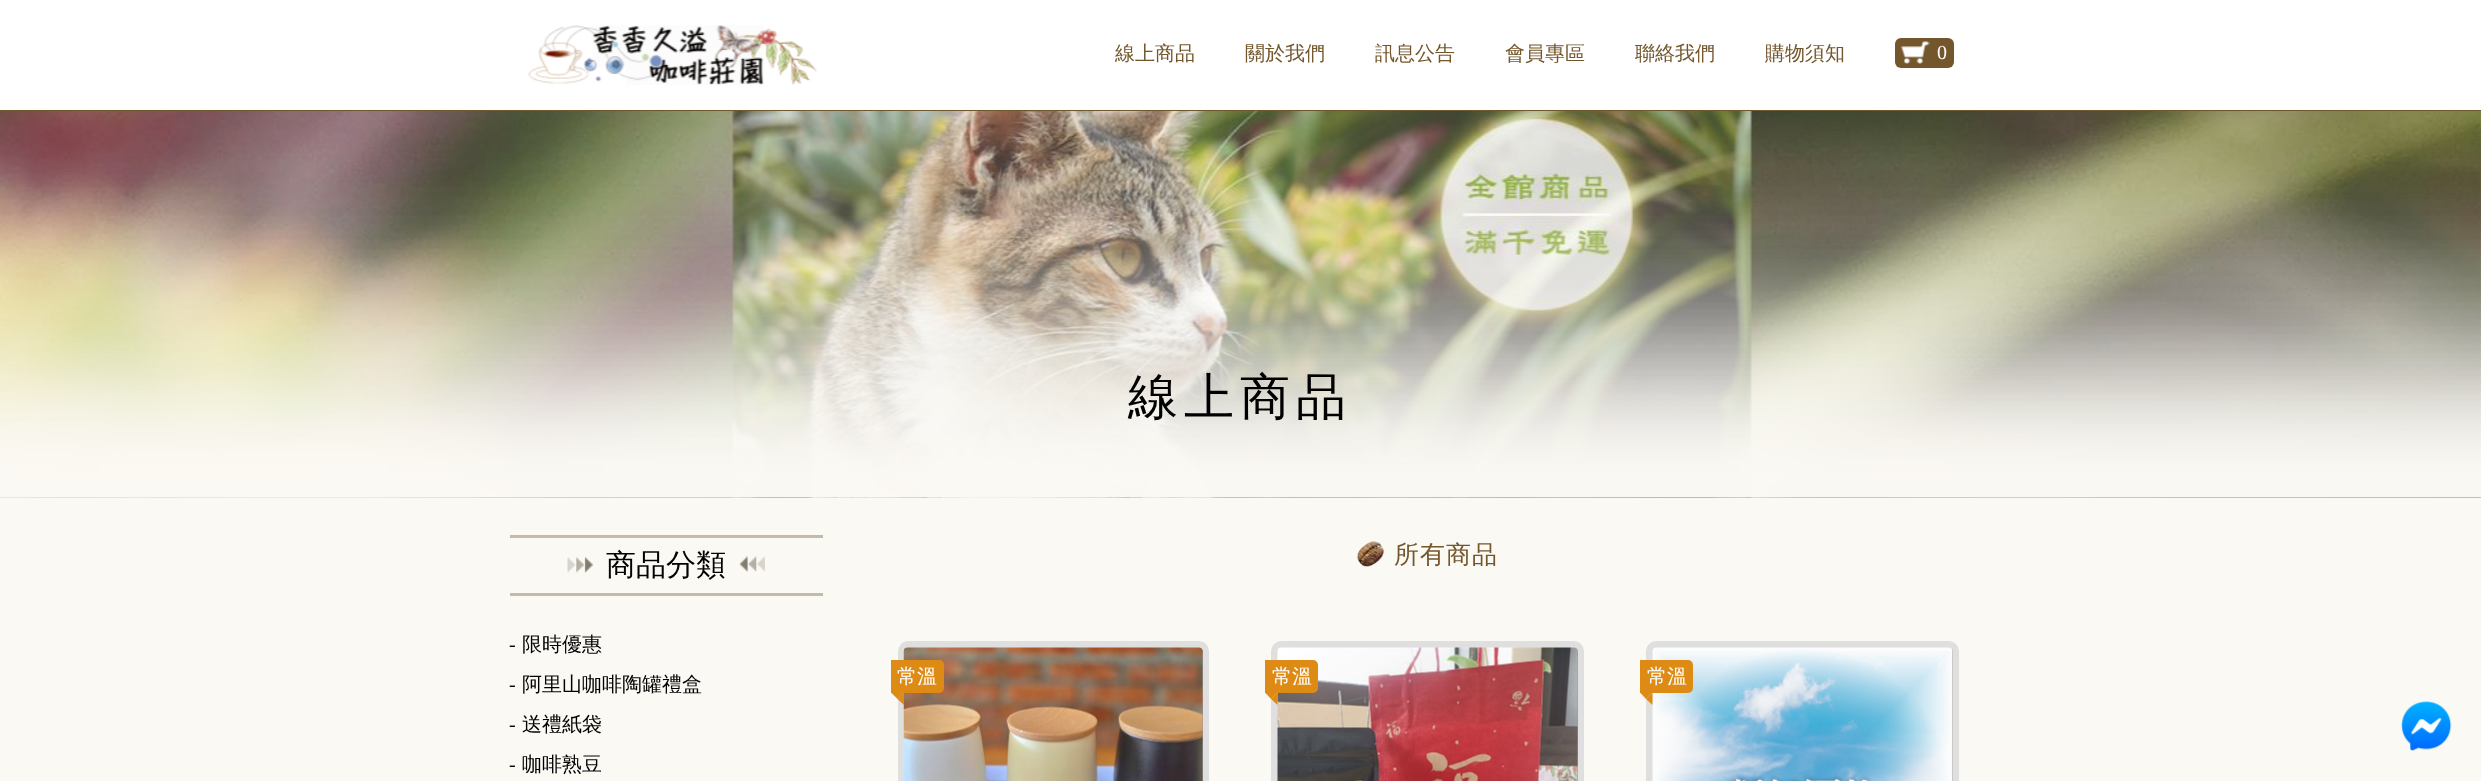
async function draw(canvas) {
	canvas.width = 2481;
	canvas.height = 781;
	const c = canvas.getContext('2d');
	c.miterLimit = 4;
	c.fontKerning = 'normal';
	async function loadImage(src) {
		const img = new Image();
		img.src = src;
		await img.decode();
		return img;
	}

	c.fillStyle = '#fbf9f4';
	c.fillRect(0, 0, 2481, 781);
	c.fillStyle = '#fff';
	c.fillRect(0, 0, 2481, 110);
	c.fillStyle = '#73562c';
	c.fillRect(0, 110, 2481, 1);
	c.drawImage(await loadImage('img1.png'), 528, 25, 289, 60);
	c.font = '500 20px WenQuanYi Zen Hei';
	for (const [text, x, y] of [
		['線上商品', 1115, 60],
		['關於我們', 1245, 60],
		['訊息公告', 1375, 60],
		['會員專區', 1505, 60],
		['聯絡我們', 1635, 60],
		['購物須知', 1765, 60],
	]) {
		c.fillText(text, x, y);
	}
	c.beginPath();
	c.roundRect(1895, 38, 59, 30, 6);
	c.fill();
	c.drawImage(await loadImage('img2.png'), 1900, 41, 30, 23);
	c.font = '20px Liberation Serif';
	c.fillStyle = '#fff';
	c.fillText('0', 1937, 59);
	c.drawImage(await loadImage('img3.png'), 0, 111, 2481, 387);
	c.drawImage(await loadImage('img4.png'), 0, 111, 2481, 387);
	c.letterSpacing = '6px';
	c.font = '500 50px WenQuanYi Zen Hei';
	c.fillStyle = '#000';
	c.fillText('線上商品', 1128, 414);
	c.fillStyle = '#c3bba7';
	c.fillRect(510, 535, 313, 3);
	c.fillRect(510, 593, 313, 3);
	c.drawImage(await loadImage('img5.png'), 567, 557, 27, 16);
	c.letterSpacing = '0px';
	c.font = '500 30px WenQuanYi Zen Hei';
	c.fillStyle = '#000';
	c.fillText('商品分類', 606, 575);
	c.drawImage(await loadImage('img6.png'), 739, 556, 26, 16);
	c.font = '20px Liberation Serif';
	c.fillText('-', 509, 651);
	c.font = '500 20px WenQuanYi Zen Hei';
	c.fillText('限時優惠', 522, 651);
	c.font = '20px Liberation Serif';
	c.fillText('-', 509, 691);
	c.font = '500 20px WenQuanYi Zen Hei';
	c.fillText('阿里山咖啡陶罐禮盒', 522, 691);
	c.font = '20px Liberation Serif';
	c.fillText('-', 509, 731);
	c.font = '500 20px WenQuanYi Zen Hei';
	c.fillText('送禮紙袋', 522, 731);
	c.font = '20px Liberation Serif';
	c.fillText('-', 509, 771);
	c.font = '500 20px WenQuanYi Zen Hei';
	c.fillText('咖啡熟豆', 522, 771);
	c.drawImage(await loadImage('img7.png'), 1357, 541, 27, 26);
	c.letterSpacing = '1px';
	c.font = '500 25px WenQuanYi Zen Hei';
	c.fillStyle = '#73562c';
	c.fillText('所有商品', 1394, 563);
	c.fillStyle = '#dfdfdf';
	c.filter = 'blur(0.5px)';
	c.beginPath();
	c.roundRect(898, 641, 311, 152, 10);
	c.fill();
	c.filter = 'none';
	c.fillStyle = '#999';
	c.beginPath();
	c.roundRect(904, 648, 299, 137, 4);
	c.fill();
	c.drawImage(await loadImage('img8.png'), 903, 647, 300, 134);
	c.fillStyle = '#de8b16';
	c.beginPath();
	c.roundRect(891, 660, 53, 33, [0, 5, 5, 0]);
	c.fill();
	c.letterSpacing = '0px';
	c.font = '500 20px WenQuanYi Zen Hei';
	c.fillStyle = '#fff';
	c.fillText('常溫', 897, 683);
	c.fillStyle = '#de8b16';
	c.beginPath();
	c.moveTo(891, 692.5);
	c.lineTo(904, 692.5);
	c.lineTo(897.5, 699);
	c.closePath();
	c.fill();
	c.beginPath();
	c.moveTo(904, 692.5);
	c.lineTo(904, 705);
	c.lineTo(897.5, 699);
	c.closePath();
	c.fill();
	c.fillStyle = '#dfdfdf';
	c.filter = 'blur(0.5px)';
	c.beginPath();
	c.roundRect(1271, 641, 313, 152, 10);
	c.fill();
	c.filter = 'none';
	c.fillStyle = '#999';
	c.beginPath();
	c.roundRect(1278, 648, 300, 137, 4);
	c.fill();
	c.drawImage(await loadImage('img9.png'), 1277, 647, 301, 134);
	c.fillStyle = '#de8b16';
	c.beginPath();
	c.roundRect(1265, 660, 53, 33, [0, 5, 5, 0]);
	c.fill();
	c.fillStyle = '#fff';
	c.fillText('常溫', 1272, 683);
	c.fillStyle = '#de8b16';
	c.beginPath();
	c.moveTo(1265, 692.5);
	c.lineTo(1277.5, 692.5);
	c.lineTo(1271, 699);
	c.closePath();
	c.fill();
	c.beginPath();
	c.moveTo(1277.5, 692.5);
	c.lineTo(1277.5, 705);
	c.lineTo(1271, 699);
	c.closePath();
	c.fill();
	c.fillStyle = '#dfdfdf';
	c.filter = 'blur(0.5px)';
	c.beginPath();
	c.roundRect(1646, 641, 313, 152, 10);
	c.fill();
	c.filter = 'none';
	c.fillStyle = '#999';
	c.beginPath();
	c.roundRect(1653, 648, 300, 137, 4);
	c.fill();
	c.drawImage(await loadImage('img10.png'), 1652, 647, 301, 134);
	c.fillStyle = '#de8b16';
	c.beginPath();
	c.roundRect(1640, 660, 53, 33, [0, 5, 5, 0]);
	c.fill();
	c.fillStyle = '#fff';
	c.fillText('常溫', 1647, 683);
	c.fillStyle = '#de8b16';
	c.beginPath();
	c.moveTo(1640, 692.5);
	c.lineTo(1652.5, 692.5);
	c.lineTo(1646, 699);
	c.closePath();
	c.fill();
	c.beginPath();
	c.moveTo(1652.5, 692.5);
	c.lineTo(1652.5, 705);
	c.lineTo(1646, 699);
	c.closePath();
	c.fill();
	c.drawImage(await loadImage('img11.png'), 2401, 701, 51, 50);
}

draw(document.querySelector('canvas'));
